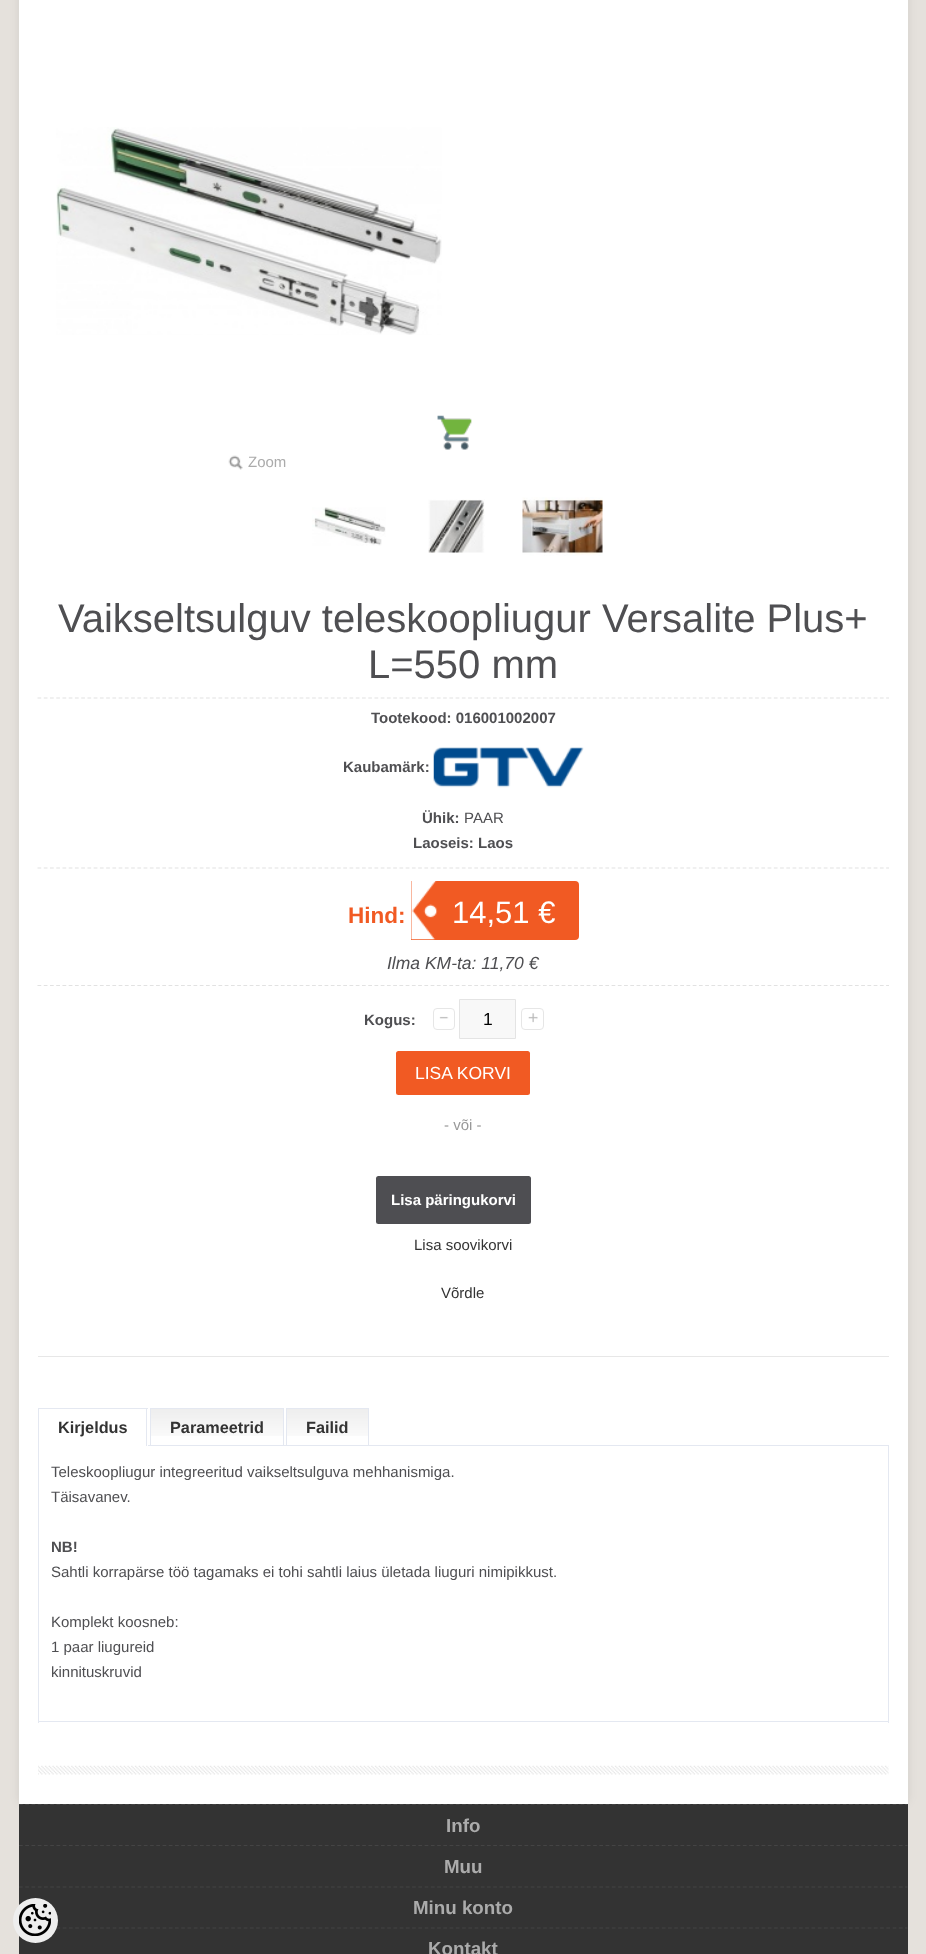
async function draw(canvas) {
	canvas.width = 926;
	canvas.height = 1954;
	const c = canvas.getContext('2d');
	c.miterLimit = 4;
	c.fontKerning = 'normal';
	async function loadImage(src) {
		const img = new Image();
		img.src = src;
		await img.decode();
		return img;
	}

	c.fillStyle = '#e5e1dc';
	c.fillRect(0, 0, 926, 1954);
	c.fillStyle = '#00000014';
	c.filter = 'blur(5px)';
	c.beginPath();
	c.roundRect(19, -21, 889, 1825, 6);
	c.fill();
	c.filter = 'none';
	c.fillStyle = '#fff';
	c.fillRect(19, 0, 889, 1804);
	c.drawImage(await loadImage('img1.png'), 56, 127, 386, 208);
	c.drawImage(await loadImage('img2.png'), 437, 415, 35, 35);
	c.drawImage(await loadImage('img3.png'), 228, 455, 15, 15);
	c.font = '15px Liberation Sans';
	c.fillStyle = '#ababab';
	c.fillText('Zoom', 248, 467);
	c.drawImage(await loadImage('img4.png'), 312, 507, 74, 39);
	c.drawImage(await loadImage('img5.png'), 428, 499, 57, 54);
	c.drawImage(await loadImage('img6.png'), 522, 497, 81, 59);
	c.font = '40px Liberation Sans';
	c.fillStyle = '#4f4f52';
	c.fillText('Vaikseltsulguv teleskoopliugur Versalite Plus+', 58, 632);
	c.fillText('L=550 mm', 368, 678);
	c.beginPath();
	c.moveTo(37.5, 698);
	c.lineTo(889, 698);
	c.strokeStyle = '#e2e2e2';
	c.lineWidth = 1.2;
	c.setLineDash([3.75, 2.49]);
	c.stroke();
	c.beginPath();
	c.moveTo(37.5, 868);
	c.lineTo(889, 868);
	c.stroke();
	c.font = 'bold 15px Liberation Sans';
	c.fillText('Tootekood: 016001002007', 371, 723);
	c.fillText('Kaubamärk:', 343, 772);
	c.drawImage(await loadImage('img7.png'), 433, 747, 151, 41);
	c.fillText('Ühik:', 422, 823);
	c.font = '15px Liberation Sans';
	c.fillText('PAAR', 464, 823);
	c.font = 'bold 15px Liberation Sans';
	c.fillText('Laoseis: Laos', 413, 848);
	c.beginPath();
	c.moveTo(37.5, 985.5);
	c.lineTo(889, 985.5);
	c.stroke();
	c.font = 'bold 22.5px Liberation Sans';
	c.fillStyle = '#f15a23';
	c.fillText('Hind:', 348, 923);
	c.beginPath();
	c.roundRect(411, 881, 168, 59, [0, 4, 4, 0]);
	c.fill();
	c.drawImage(await loadImage('img8.png'), 411, 881, 27, 59);
	c.font = '31px Liberation Sans';
	c.fillStyle = '#fff';
	c.fillText('14,51 €', 452, 923);
	c.font = 'italic 17.5px Liberation Sans';
	c.fillStyle = '#4f4f52';
	c.fillText('Ilma KM-ta: 11,70 €', 387, 969);
	c.fillStyle = '#e7e7e7';
	c.fillRect(38, 1356, 851, 1);
	c.font = 'bold 15px Liberation Sans';
	c.fillStyle = '#4f4f52';
	c.fillText('Kogus:', 364, 1025);
	c.drawImage(await loadImage('img9.png'), 439, 1016, 10, 3);
	c.beginPath();
	c.roundRect(433.5, 1008.5, 21, 21, 3.5);
	c.strokeStyle = '#e6e6e6';
	c.lineWidth = 1;
	c.setLineDash([]);
	c.stroke();
	c.fillStyle = '#f8f8f8';
	c.beginPath();
	c.rect(459.5, 999.5, 56, 39);
	c.fill();
	c.strokeStyle = '#e4e4e4';
	c.stroke();
	c.font = '17.5px Liberation Sans';
	c.fillStyle = '#000';
	c.fillText('1', 483, 1025);
	c.drawImage(await loadImage('img10.png'), 528, 1013, 10, 10);
	c.beginPath();
	c.roundRect(521.5, 1008.5, 22, 21, 3.5);
	c.strokeStyle = '#e6e6e6';
	c.stroke();
	c.fillStyle = '#f15a23';
	c.beginPath();
	c.roundRect(396, 1051, 134, 44, 2.5);
	c.fill();
	c.fillStyle = '#fff';
	c.fillText('LISA KORVI', 415, 1079);
	c.font = '15px Liberation Sans';
	c.fillStyle = '#999';
	c.fillText('- või -', 444, 1130);
	c.fillStyle = '#4e4e52';
	c.beginPath();
	c.roundRect(376, 1176, 155, 48, 2.5);
	c.fill();
	c.font = 'bold 15px Liberation Sans';
	c.fillStyle = '#fff';
	c.fillText('Lisa päringukorvi', 391, 1205);
	c.font = '15px Liberation Sans';
	c.fillStyle = '#333';
	c.fillText('Lisa soovikorvi', 414, 1250);
	c.fillText('Võrdle', 441, 1298);
	for (const [x, y, w, h, color] of [
		[148, 1445, 741, 1, '#e4e8f1'],
		[38, 1408, 110, 1, '#e4e8f1'],
		[146, 1408, 1, 38, '#e4e8f1'],
		[38, 1408, 1, 38, '#e4e8f1'],
	]) {
		c.fillStyle = color;
		c.fillRect(x, y, w, h);
	}
	c.font = 'bold 16.25px Liberation Sans';
	c.fillStyle = '#333';
	c.fillText('Kirjeldus', 58, 1433);
	c.drawImage(await loadImage('img11.png'), 151, 1409, 132, 27);
	for (const [x, y, w, h, color] of [
		[150, 1408, 134, 1, '#e4e8f1'],
		[283, 1408, 1, 37, '#e4e8f1'],
		[150, 1408, 1, 37, '#e4e8f1'],
	]) {
		c.fillStyle = color;
		c.fillRect(x, y, w, h);
	}
	c.fillStyle = '#333';
	c.fillText('Parameetrid', 170, 1433);
	c.drawImage(await loadImage('img12.png'), 287, 1409, 81, 27);
	for (const [x, y, w, h, color] of [
		[286, 1408, 83, 1, '#e4e8f1'],
		[368, 1408, 1, 37, '#e4e8f1'],
		[286, 1408, 1, 37, '#e4e8f1'],
	]) {
		c.fillStyle = color;
		c.fillRect(x, y, w, h);
	}
	c.fillStyle = '#333';
	c.fillText('Failid', 306, 1433);
	for (const [x, y, w, h, color] of [
		[888, 1446, 1, 277, '#e4e8f1'],
		[38, 1721, 851, 1, '#e4e8f1'],
		[38, 1446, 1, 277, '#e4e8f1'],
	]) {
		c.fillStyle = color;
		c.fillRect(x, y, w, h);
	}
	c.font = '15px Liberation Sans';
	c.fillStyle = '#4f4f52';
	c.fillText('Teleskoopliugur integreeritud vaikseltsulguva mehhanismiga.', 51, 1477);
	c.fillText('Täisavanev.', 51, 1502);
	c.font = 'bold 15px Liberation Sans';
	c.fillText('NB!', 51, 1552);
	c.font = '15px Liberation Sans';
	for (const [text, x, y] of [
		['Sahtli korrapärse töö tagamaks ei tohi sahtli laius ületada liuguri nimipikkust.', 51, 1577],
		['Komplekt koosneb:', 51, 1627],
		['1 paar liugureid', 51, 1652],
		['kinnituskruvid', 51, 1677],
	]) {
		c.fillText(text, x, y);
	}
	c.drawImage(await loadImage('img13.png'), 38, 1765, 851, 10);
	c.fillStyle = '#333';
	c.fillRect(19, 1804, 889, 150);
	c.beginPath();
	c.moveTo(19, 1928);
	c.lineTo(907.5, 1928);
	c.strokeStyle = '#444';
	c.lineWidth = 1.2;
	c.setLineDash([3.75, 2.49]);
	c.stroke();
	c.fillStyle = '#eee';
	c.beginPath();
	c.arc(35.5, 1920.5, 22.5, 0, 2 * Math.PI);
	c.fill();
	c.drawImage(await loadImage('img14.png'), 19, 1904, 32, 32);
	c.save();
	c.beginPath();
	c.moveTo(19, 1804);
	c.lineTo(908, 1804);
	c.lineTo(908, 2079);
	c.bezierCurveTo(908, 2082.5, 905.5, 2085, 902, 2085);
	c.lineTo(25, 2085);
	c.bezierCurveTo(21.5, 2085, 19, 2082.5, 19, 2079);
	c.closePath();
	c.clip();
	c.beginPath();
	c.moveTo(19, 1804.5);
	c.lineTo(907.5, 1804.5);
	c.stroke();
	c.restore();
	c.font = 'bold 18.75px Liberation Sans';
	c.fillStyle = '#ababab';
	c.fillText('Info', 446, 1832);
	c.beginPath();
	c.moveTo(19, 1845.5);
	c.lineTo(907.5, 1845.5);
	c.stroke();
	c.fillText('Muu', 444, 1873);
	c.beginPath();
	c.moveTo(19, 1887);
	c.lineTo(907.5, 1887);
	c.stroke();
	c.fillText('Minu konto', 413, 1914);
	c.fillText('Kontakt', 428, 1955);
}

draw(document.querySelector('canvas'));
